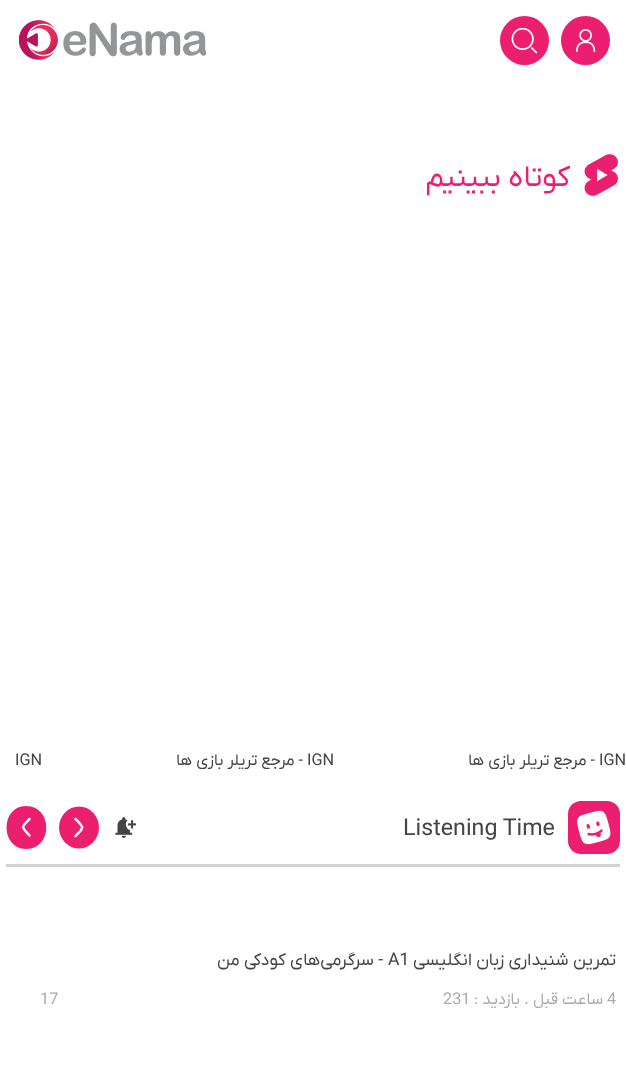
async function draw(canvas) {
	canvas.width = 626;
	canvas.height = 1071;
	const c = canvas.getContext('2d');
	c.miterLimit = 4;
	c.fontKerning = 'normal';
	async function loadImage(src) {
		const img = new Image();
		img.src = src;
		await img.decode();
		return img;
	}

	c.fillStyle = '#fff';
	c.fillRect(0, 0, 626, 1071);
	c.fillStyle = '#eb1e6f';
	c.beginPath();
	c.arc(585.5, 40.5, 24.5, 0, 2 * Math.PI);
	c.fill();
	c.drawImage(await loadImage('img1.png'), 576, 29, 20, 24);
	c.beginPath();
	c.arc(524.5, 40.5, 24.5, 0, 2 * Math.PI);
	c.fill();
	c.drawImage(await loadImage('img2.png'), 511, 28, 27, 26);
	c.drawImage(await loadImage('img3.png'), 19, 20, 187, 40);
	c.drawImage(await loadImage('img4.png'), 584, 154, 34, 42);
	c.direction = 'rtl';
	c.font = '30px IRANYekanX';
	c.fillText('کوتاه ببینیم', 570, 186);
	c.direction = 'ltr';
	c.font = '16.25px IRANYekanX';
	c.fillStyle = '#444';
	c.fillText('IGN', 599, 765);
	c.direction = 'rtl';
	c.fillText('- مرجع تریلر بازی ها', 595, 765);
	c.direction = 'ltr';
	c.fillText('IGN', 307, 765);
	c.direction = 'rtl';
	c.fillText('- مرجع تریلر بازی ها', 303, 765);
	c.direction = 'ltr';
	c.fillText('IGN', 15, 765);
	c.fillStyle = '#d2d2d2';
	c.fillRect(6, 864, 614, 3);
	c.fillStyle = '#eb1e6f';
	c.beginPath();
	c.roundRect(568, 801, 52, 53, 13);
	c.fill();
	c.drawImage(await loadImage('img5.png'), 577, 810, 34, 35);
	c.font = '23.25px IRANYekanX';
	c.fillStyle = '#444';
	c.fillText('Listening Time', 403, 835);
	c.drawImage(await loadImage('img6.png'), 115, 817, 21, 21);
	c.fillStyle = '#eb1e6f';
	c.beginPath();
	c.ellipse(79, 827.5, 20, 21, 0, 0, 2 * Math.PI);
	c.fill();
	c.beginPath();
	c.moveTo(75.5, 819);
	c.bezierCurveTo(84.5, 828, 84.5, 827, 75.5, 836);
	c.strokeStyle = '#fff';
	c.lineWidth = 2.5;
	c.lineCap = 'round';
	c.stroke();
	c.beginPath();
	c.moveTo(26, 849);
	c.bezierCurveTo(0, 849, 0, 806, 26, 806);
	c.bezierCurveTo(53, 806, 53, 849, 26, 849);
	c.closePath();
	c.fill();
	c.beginPath();
	c.moveTo(29.5, 835.5);
	c.bezierCurveTo(21, 826.5, 21, 827.5, 29.5, 819);
	c.stroke();
	c.direction = 'rtl';
	c.font = '17.5px IRANYekanX';
	c.fillStyle = '#444';
	c.fillText('تمرین شنیداری زبان انگلیسی', 616, 965);
	c.direction = 'ltr';
	c.fillText('A1', 388, 965);
	c.direction = 'rtl';
	c.fillText('- سرگرمی‌های کودکی من', 383, 965);
	c.direction = 'ltr';
	c.font = '16.25px IRANYekanX';
	c.fillStyle = '#aaa';
	c.fillText('4', 607, 1004);
	c.direction = 'rtl';
	c.fillText('ساعت قبل', 603, 1004);
	c.direction = 'ltr';
	c.fillText('.', 524, 1004);
	c.direction = 'rtl';
	c.fillText('بازدید :', 520, 1004);
	c.direction = 'ltr';
	c.fillText('231', 443, 1004);
	c.fillText('17', 40, 1004);
}

draw(document.querySelector('canvas'));
